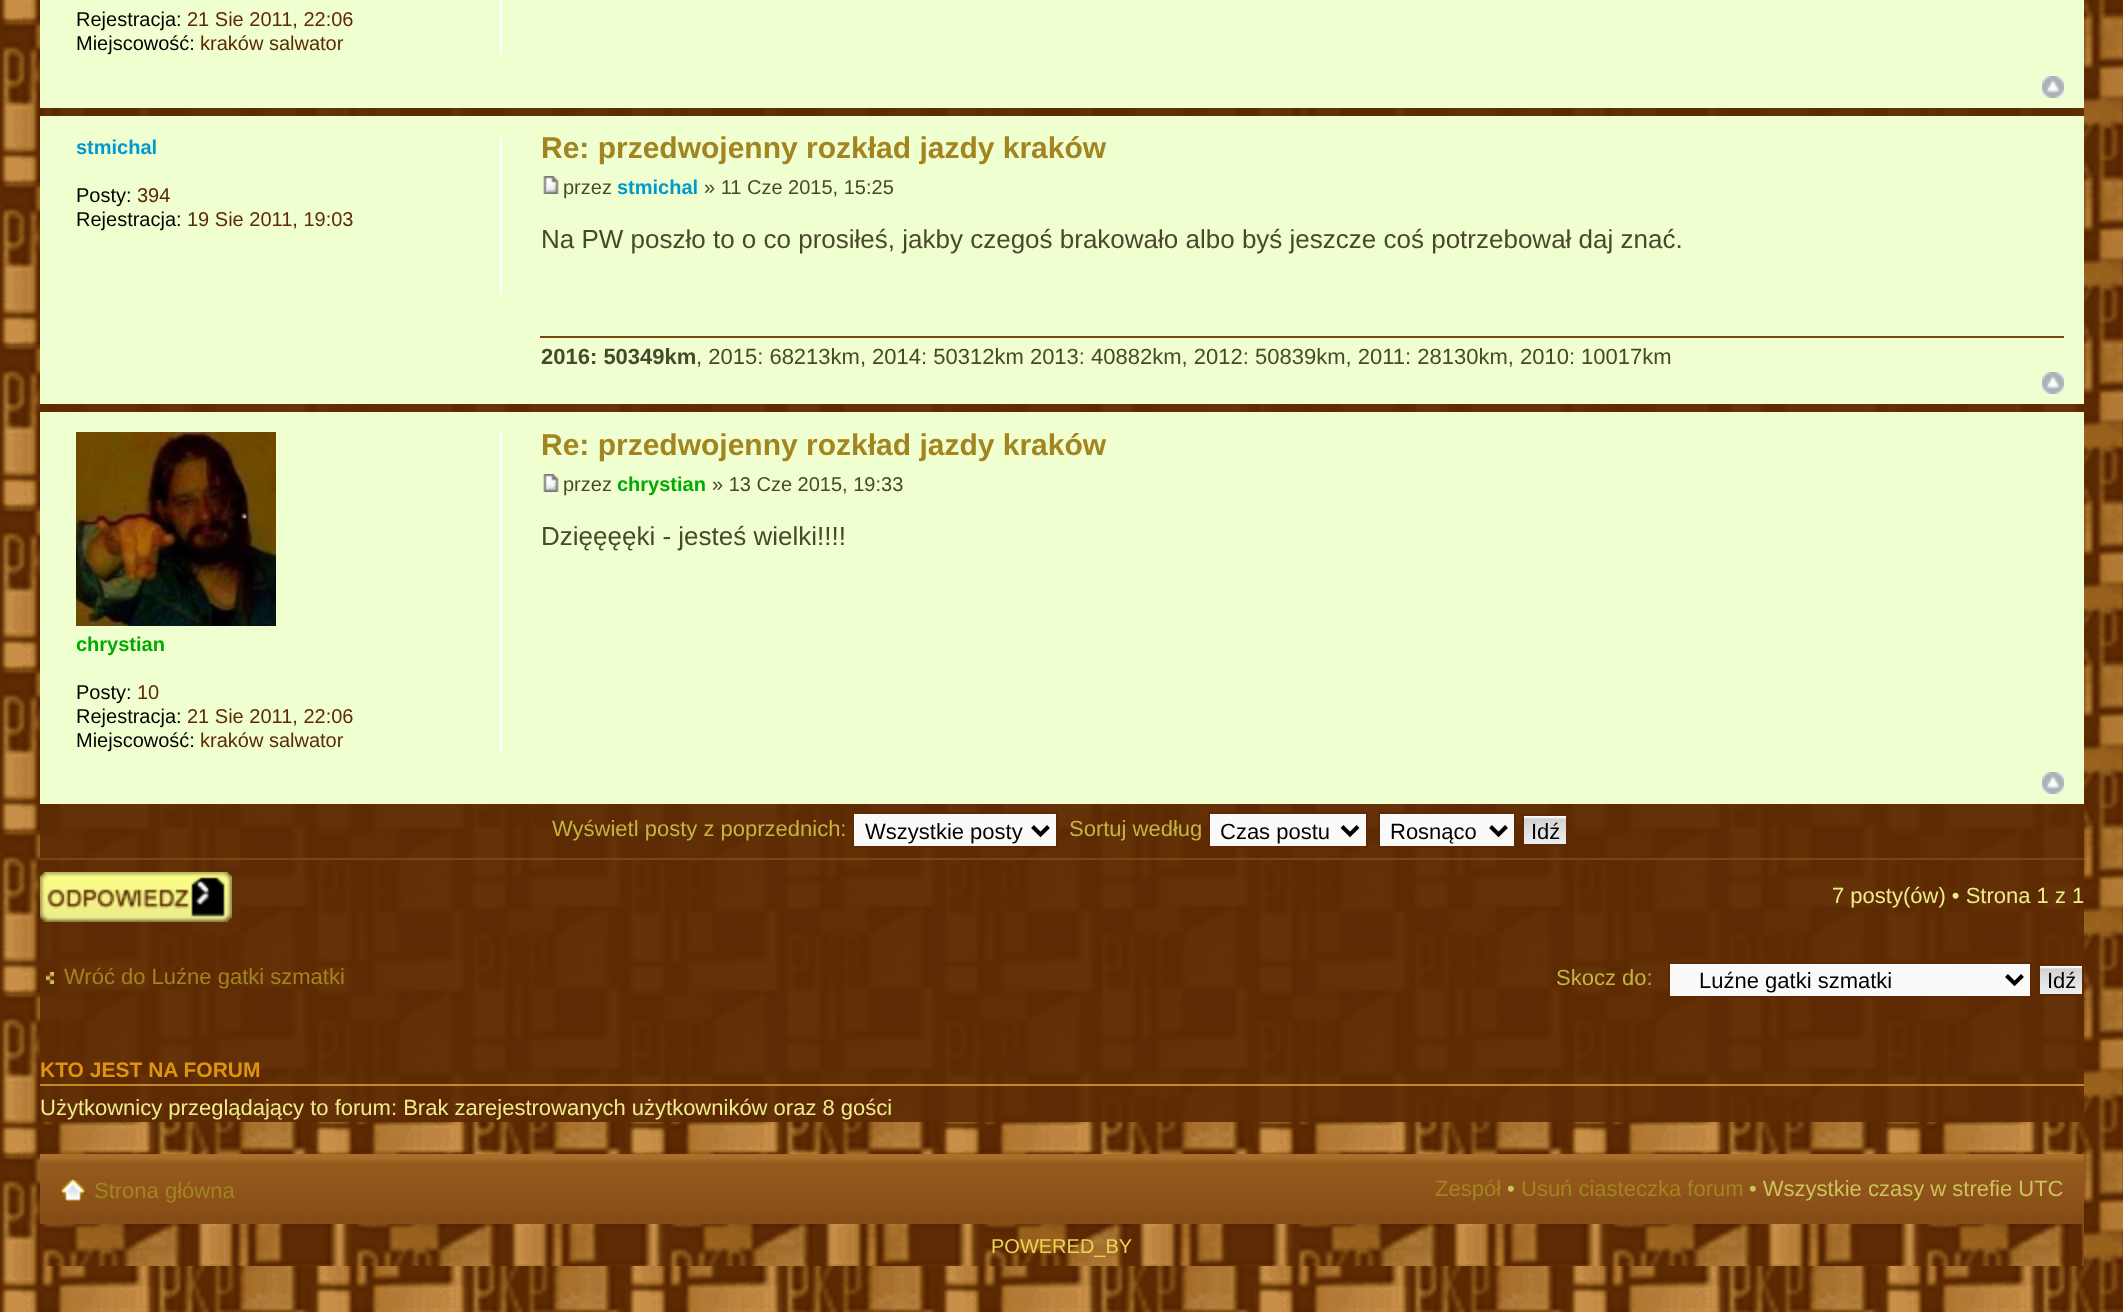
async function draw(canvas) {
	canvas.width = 2123;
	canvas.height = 1312;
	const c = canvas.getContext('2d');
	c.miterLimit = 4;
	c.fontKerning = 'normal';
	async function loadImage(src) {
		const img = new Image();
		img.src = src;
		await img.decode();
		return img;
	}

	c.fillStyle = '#fff';
	c.fillRect(0, 0, 2123, 1312);
	c.drawImage(await loadImage('img1.png'), 0, 0, 2123, 1312);
	for (const [x, y, w, h, color] of [
		[40, 108, 2044, 1014, '#5d2a03eb'],
		[40, 0, 2044, 108, '#f0ffcf'],
		[500, 0, 2, 56, '#fff'],
	]) {
		c.fillStyle = color;
		c.fillRect(x, y, w, h);
	}
	c.font = '20px Liberation Sans';
	c.fillStyle = '#000';
	c.fillText('Rejestracja:', 76, 26);
	c.fillStyle = '#5d2a03';
	c.fillText('21 Sie 2011, 22:06', 187, 26);
	c.fillStyle = '#000';
	c.fillText('Miejscowość:', 76, 50);
	c.fillStyle = '#5d2a03';
	c.fillText('kraków salwator', 200, 50);
	c.drawImage(await loadImage('img2.png'), 2042, 76, 22, 22);
	c.fillStyle = '#f0ffcf';
	c.fillRect(40, 116, 2044, 288);
	c.fillStyle = '#fff';
	c.fillRect(500, 136, 2, 160);
	c.font = 'bold 20px Liberation Sans';
	c.fillStyle = '#09c';
	c.fillText('stmichal', 76, 154);
	c.font = '20px Liberation Sans';
	c.fillStyle = '#000';
	c.fillText('Posty:', 76, 202);
	c.fillStyle = '#5d2a03';
	c.fillText('394', 137, 202);
	c.fillStyle = '#000';
	c.fillText('Rejestracja:', 76, 226);
	c.fillStyle = '#5d2a03';
	c.fillText('19 Sie 2011, 19:03', 187, 226);
	c.font = 'bold 30px Liberation Sans';
	c.fillStyle = '#a28520';
	c.fillText('Re: przedwojenny rozkład jazdy kraków', 541, 158);
	c.drawImage(await loadImage('img3.png'), 543, 176, 16, 18);
	c.font = '20px Liberation Sans';
	c.fillStyle = '#48492c';
	c.fillText('przez', 563, 194);
	c.font = 'bold 20px Liberation Sans';
	c.fillStyle = '#09c';
	c.fillText('stmichal', 617, 194);
	c.font = '20px Liberation Sans';
	c.fillStyle = '#48492c';
	c.fillText('» 11 Cze 2015, 15:25', 704, 194);
	c.font = '26px Liberation Sans';
	c.fillText('Na PW poszło to o co prosiłeś, jakby czegoś brakowało albo byś jeszcze coś potrzebował daj znać.', 541, 248);
	c.fillStyle = '#7a4610';
	c.fillRect(540, 336, 1524, 2);
	c.font = 'bold 22px Liberation Sans';
	c.fillStyle = '#48492c';
	c.fillText('2016: 50349km', 541, 364);
	c.font = '22px Liberation Sans';
	c.fillText(', 2015: 68213km, 2014: 50312km 2013: 40882km, 2012: 50839km, 2011: 28130km, 2010: 10017km', 696, 364);
	c.drawImage(await loadImage('img2.png'), 2042, 372, 22, 22);
	c.fillStyle = '#f0ffcf';
	c.fillRect(40, 412, 2044, 392);
	c.font = 'bold 30px Liberation Sans';
	c.fillStyle = '#a28520';
	c.fillText('Re: przedwojenny rozkład jazdy kraków', 541, 455);
	c.drawImage(await loadImage('img3.png'), 543, 474, 16, 18);
	c.font = '20px Liberation Sans';
	c.fillStyle = '#48492c';
	c.fillText('przez', 563, 491);
	c.font = 'bold 20px Liberation Sans';
	c.fillStyle = '#0a0';
	c.fillText('chrystian', 617, 491);
	c.font = '20px Liberation Sans';
	c.fillStyle = '#48492c';
	c.fillText('» 13 Cze 2015, 19:33', 712, 491);
	c.font = '26px Liberation Sans';
	c.fillText('Dzięęęęki - jesteś wielki!!!!', 541, 545);
	c.fillStyle = '#fff';
	c.fillRect(500, 432, 2, 320);
	c.drawImage(await loadImage('img4.png'), 76, 432, 200, 194);
	c.font = 'bold 20px Liberation Sans';
	c.fillStyle = '#0a0';
	c.fillText('chrystian', 76, 651);
	c.font = '20px Liberation Sans';
	c.fillStyle = '#000';
	c.fillText('Posty:', 76, 699);
	c.fillStyle = '#5d2a03';
	c.fillText('10', 137, 699);
	c.fillStyle = '#000';
	c.fillText('Rejestracja:', 76, 723);
	c.fillStyle = '#5d2a03';
	c.fillText('21 Sie 2011, 22:06', 187, 723);
	c.fillStyle = '#000';
	c.fillText('Miejscowość:', 76, 747);
	c.fillStyle = '#5d2a03';
	c.fillText('kraków salwator', 200, 747);
	c.drawImage(await loadImage('img2.png'), 2042, 772, 22, 22);
	c.font = '22px Liberation Sans';
	c.fillStyle = '#c3b542';
	c.fillText('Wyświetl posty z poprzednich:', 552, 836);
	c.fillStyle = '#fafafa';
	c.beginPath();
	c.rect(853, 813, 204, 34);
	c.fill();
	c.strokeStyle = '#5d2a03';
	c.lineWidth = 2;
	c.stroke();
	c.beginPath();
	c.moveTo(1032.5, 826.5);
	c.lineTo(1040.5, 834.5);
	c.lineTo(1048.5, 826.5);
	c.strokeStyle = '#000';
	c.lineWidth = 4;
	c.stroke();
	c.fillStyle = '#000';
	c.fillText('Wszystkie posty', 865, 839);
	c.fillStyle = '#c3b542';
	c.fillText('Sortuj według', 1069, 836);
	c.fillStyle = '#fafafa';
	c.beginPath();
	c.rect(1209, 813, 158, 34);
	c.fill();
	c.strokeStyle = '#5d2a03';
	c.lineWidth = 2;
	c.stroke();
	c.beginPath();
	c.moveTo(1342, 826.5);
	c.lineTo(1350, 834.5);
	c.lineTo(1358, 826.5);
	c.strokeStyle = '#000';
	c.lineWidth = 4;
	c.stroke();
	c.fillStyle = '#000';
	c.fillText('Czas postu', 1220, 839);
	c.fillStyle = '#fafafa';
	c.beginPath();
	c.rect(1379, 813, 136, 34);
	c.fill();
	c.strokeStyle = '#5d2a03';
	c.lineWidth = 2;
	c.stroke();
	c.beginPath();
	c.moveTo(1490.5, 826.5);
	c.lineTo(1498.5, 834.5);
	c.lineTo(1506.5, 826.5);
	c.strokeStyle = '#000';
	c.lineWidth = 4;
	c.stroke();
	c.fillStyle = '#000';
	c.fillText('Rosnąco', 1390, 839);
	c.drawImage(await loadImage('img5.png'), 1524, 816, 42, 28);
	c.strokeStyle = '#5d2a03';
	c.lineWidth = 2;
	c.strokeRect(1523, 815, 44, 30);
	c.fillText('Idź', 1531, 839);
	c.fillStyle = '#7a4610';
	c.fillRect(40, 858, 2044, 2);
	c.drawImage(await loadImage('img6.png'), 40, 872, 192, 50);
	c.fillStyle = '#eeec8b';
	c.fillText('7 posty(ów) • Strona 1 z 1', 1832, 903);
	c.drawImage(await loadImage('img7.png'), 46, 972, 8, 12);
	c.fillStyle = '#a28520';
	c.fillText('Wróć do Luźne gatki szmatki', 64, 984);
	c.fillStyle = '#c3b542';
	c.fillText('Skocz do:', 1556, 985);
	c.fillStyle = '#fafafa';
	c.beginPath();
	c.rect(1669, 963, 362, 34);
	c.fill();
	c.stroke();
	c.beginPath();
	c.moveTo(2006.5, 975.5);
	c.lineTo(2014.5, 983.5);
	c.lineTo(2022.5, 975.5);
	c.strokeStyle = '#000';
	c.lineWidth = 4;
	c.stroke();
	c.fillStyle = '#000';
	c.fillText('Luźne gatki szmatki', 1699, 988);
	c.drawImage(await loadImage('img5.png'), 2040, 966, 42, 28);
	c.strokeStyle = '#5d2a03';
	c.lineWidth = 2;
	c.strokeRect(2039, 965, 44, 30);
	c.fillText('Idź', 2047, 988);
	c.fillStyle = '#c58b1c';
	c.fillRect(40, 1084, 2044, 2);
	c.font = 'bold 21px Liberation Sans';
	c.fillStyle = '#db950e';
	c.fillText('KTO JEST NA FORUM', 40, 1077);
	c.font = '22px Liberation Sans';
	c.fillStyle = '#eeec8b';
	c.fillText('Użytkownicy przeglądający to forum: Brak zarejestrowanych użytkowników oraz 8 gości', 40, 1115);
	c.drawImage(await loadImage('img8.png'), 40, 1154, 2044, 70);
	c.drawImage(await loadImage('img9.png'), 60, 1178, 26, 24);
	c.fillStyle = '#a28520';
	c.fillText('Strona główna', 94, 1198);
	c.fillText('Zespół', 1435, 1196);
	c.fillStyle = '#cfc25a';
	c.fillText('•', 1507, 1196);
	c.fillStyle = '#a28520';
	c.fillText('Usuń ciasteczka forum', 1521, 1196);
	c.fillStyle = '#cfc25a';
	c.fillText('• Wszystkie czasy w strefie UTC', 1749, 1196);
	c.drawImage(await loadImage('img10.png'), 40, 1224, 2044, 42);
	c.font = '20px Liberation Sans';
	c.fillStyle = '#ecd356';
	c.fillText('POWERED_BY', 991, 1253);
}

draw(document.querySelector('canvas'));
